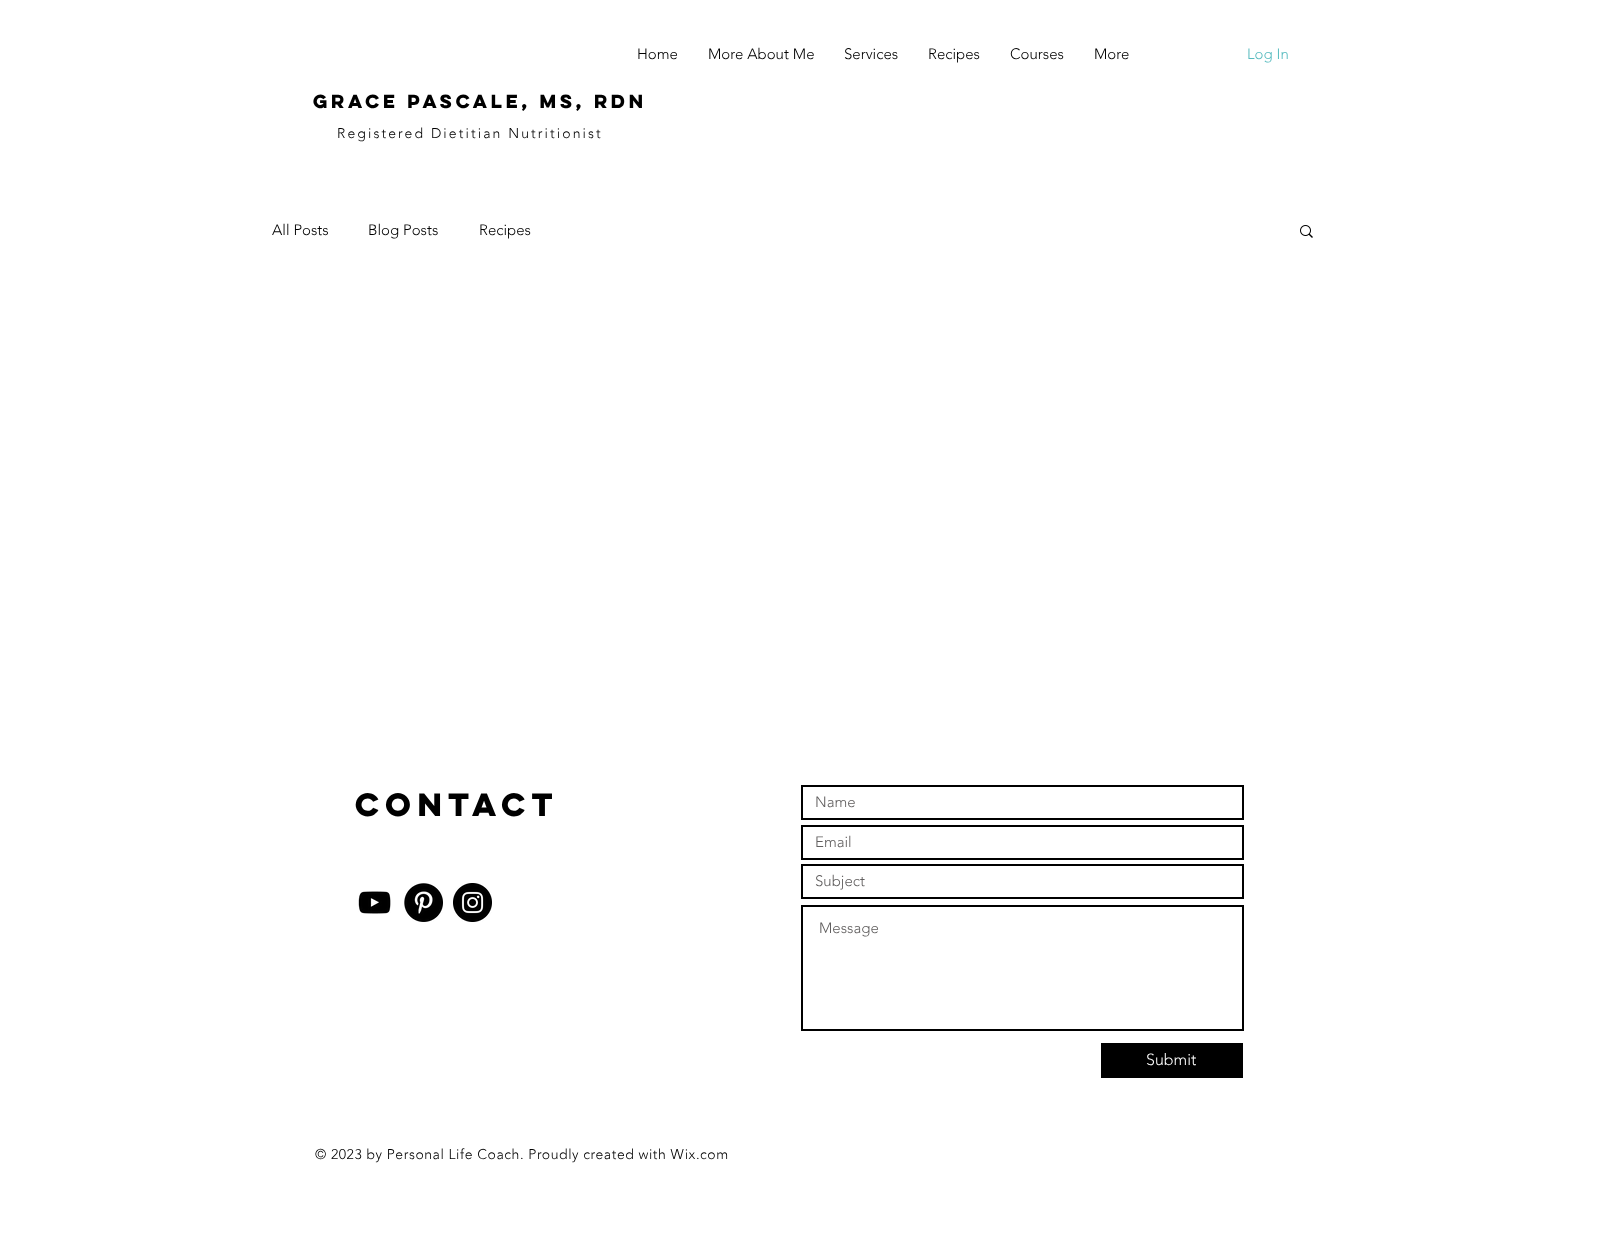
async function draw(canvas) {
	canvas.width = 1603;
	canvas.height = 1255;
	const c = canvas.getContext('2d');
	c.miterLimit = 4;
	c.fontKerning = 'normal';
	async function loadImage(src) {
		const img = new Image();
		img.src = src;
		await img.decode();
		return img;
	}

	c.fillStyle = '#fff';
	c.fillRect(0, 0, 1603, 1255);
	c.font = '300 15px "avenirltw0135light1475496"';
	c.fillStyle = '#000';
	for (const [text, x, y] of [
		['Home', 637, 59],
		['More About Me', 708, 59],
		['Services', 844, 59],
		['Recipes', 928, 59],
		['Courses', 1010, 59],
		['More', 1094, 59],
	]) {
		c.fillText(text, x, y);
	}
	c.fillStyle = '#57bbbf';
	c.fillText('Log In', 1247, 59);
	c.font = 'bold 17px "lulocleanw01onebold"';
	c.fillStyle = '#000';
	c.fillText('Grace PascalE, MS, RDN', 313, 108);
	c.letterSpacing = '2.1px';
	c.font = '300 14px "avenirltw0135light1475496"';
	c.fillText('Registered Dietitian Nutritionist', 337, 138);
	c.letterSpacing = '0px';
	c.font = '300 15px "avenirltw0135light1475496"';
	for (const [text, x, y] of [
		['All Posts', 272, 235],
		['Blog Posts', 368, 235],
		['Recipes', 479, 235],
	]) {
		c.fillText(text, x, y);
	}
	c.drawImage(await loadImage('img1.png'), 1300, 225, 13, 13);
	c.font = 'bold 29px "lulocleanw01onebold"';
	c.fillText('Contact', 355, 816);
	c.strokeStyle = '#000';
	c.lineWidth = 2;
	c.strokeRect(802, 786, 441, 33);
	c.font = '300 15px "avenirltw0135light1475496"';
	c.fillStyle = '#605e5e';
	c.fillText('Name', 815, 807);
	c.strokeRect(802, 826, 441, 33);
	c.fillText('Email', 815, 847);
	c.strokeRect(802, 865, 441, 33);
	c.fillText('Subject', 815, 886);
	c.strokeRect(802, 906, 441, 124);
	c.fillText('Message', 819, 933);
	c.fillStyle = '#000';
	c.fillRect(1101, 1043, 142, 35);
	c.font = '300 16px "avenirltw0135light1475496"';
	c.fillStyle = '#fff';
	c.fillText('Submit', 1146, 1065);
	c.drawImage(await loadImage('img2.png'), 358, 891, 33, 23);
	c.drawImage(await loadImage('img3.png'), 404, 883, 39, 39);
	c.drawImage(await loadImage('img4.png'), 453, 883, 39, 39);
	c.letterSpacing = '0.55px';
	c.font = '300 14px "avenirltw0135light1475496"';
	c.fillStyle = '#000';
	c.fillText('© 2023 by Personal Life Coach. Proudly created with Wix.com', 315, 1159);
}

draw(document.querySelector('canvas'));
